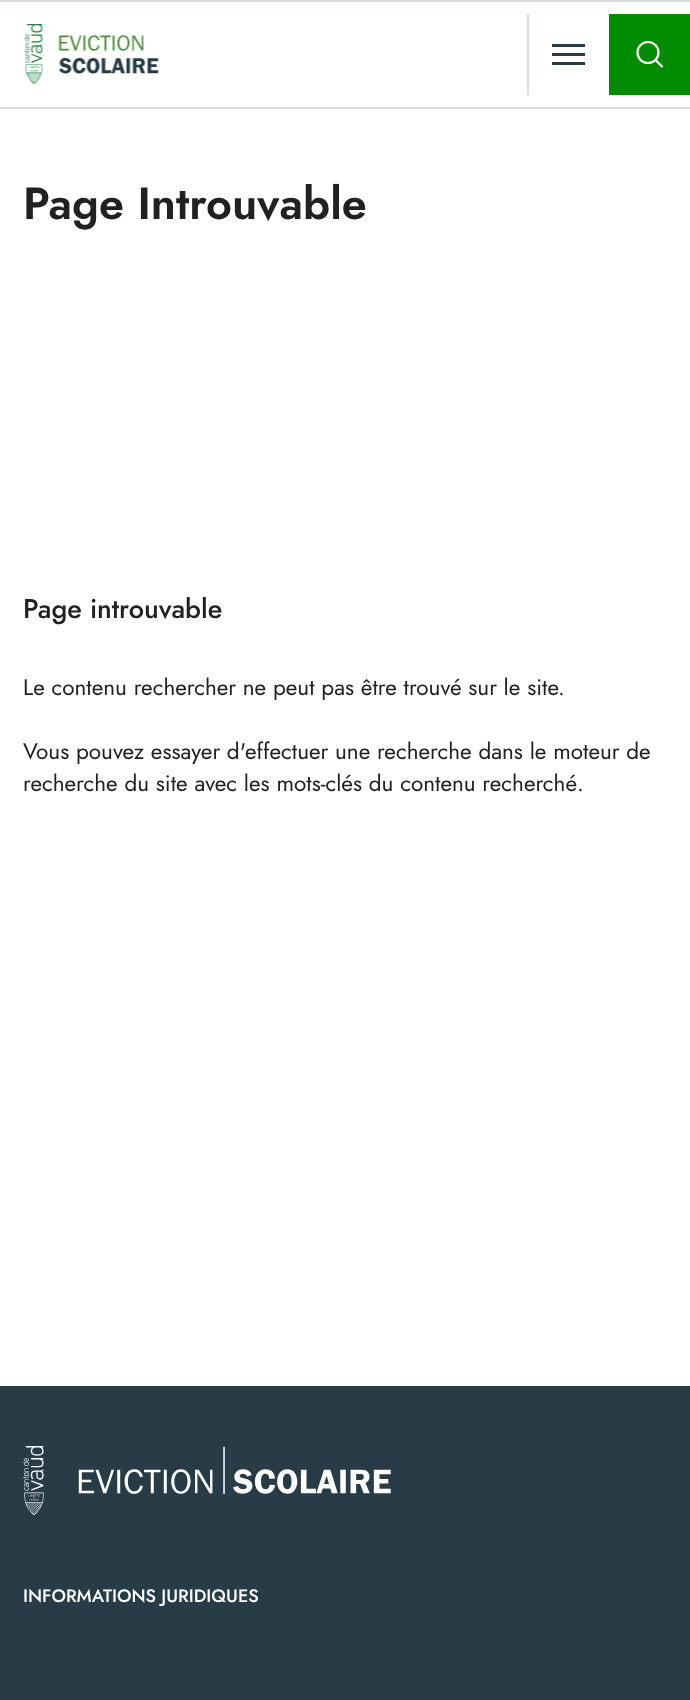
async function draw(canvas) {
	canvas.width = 690;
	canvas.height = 1700;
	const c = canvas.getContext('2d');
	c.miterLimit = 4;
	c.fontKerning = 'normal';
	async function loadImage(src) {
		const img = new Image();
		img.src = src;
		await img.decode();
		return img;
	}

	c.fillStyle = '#fff';
	c.fillRect(0, 0, 690, 1700);
	c.fillStyle = '#d6dbde';
	c.fillRect(0, 0, 690, 2);
	c.fillRect(0, 107, 690, 2);
	c.drawImage(await loadImage('img1.png'), 23, 24, 136, 60);
	for (const [x, y, w, h, color] of [
		[527, 14, 2, 81, '#d6dbde'],
		[552, 53, 33, 3, '#273c47'],
		[552, 44, 33, 3, '#273c47'],
		[552, 62, 33, 3, '#273c47'],
		[609, 14, 81, 81, '#008b00'],
	]) {
		c.fillStyle = color;
		c.fillRect(x, y, w, h);
	}
	c.beginPath();
	c.arc(648, 52.5, 10.5, 0, 2 * Math.PI);
	c.strokeStyle = '#fff';
	c.lineWidth = 2.2;
	c.stroke();
	c.beginPath();
	c.moveTo(662, 66.5);
	c.lineTo(656, 60.5);
	c.lineCap = 'round';
	c.lineJoin = 'round';
	c.stroke();
	c.font = '600 45px Jost';
	c.fillStyle = '#212121';
	c.fillText('Page Introuvable', 23, 219);
	c.font = '500 27px Jost';
	c.fillText('Page introuvable', 23, 618);
	c.font = '22.5px Jost';
	for (const [text, x, y] of [
		['Le contenu rechercher ne peut pas être trouvé sur le site.', 23, 695],
		['Vous pouvez essayer d\'effectuer une recherche dans le moteur de', 23, 759],
		['recherche du site avec les mots-clés du contenu recherché.', 23, 791],
	]) {
		c.fillText(text, x, y);
	}
	c.fillStyle = '#273c47';
	c.fillRect(0, 1386, 690, 314);
	c.drawImage(await loadImage('img2.png'), 23, 1446, 368, 69);
	c.font = '500 18px Jost';
	c.fillStyle = '#fff';
	c.fillText('INFORMATIONS JURIDIQUES', 23, 1602);
}

draw(document.querySelector('canvas'));
